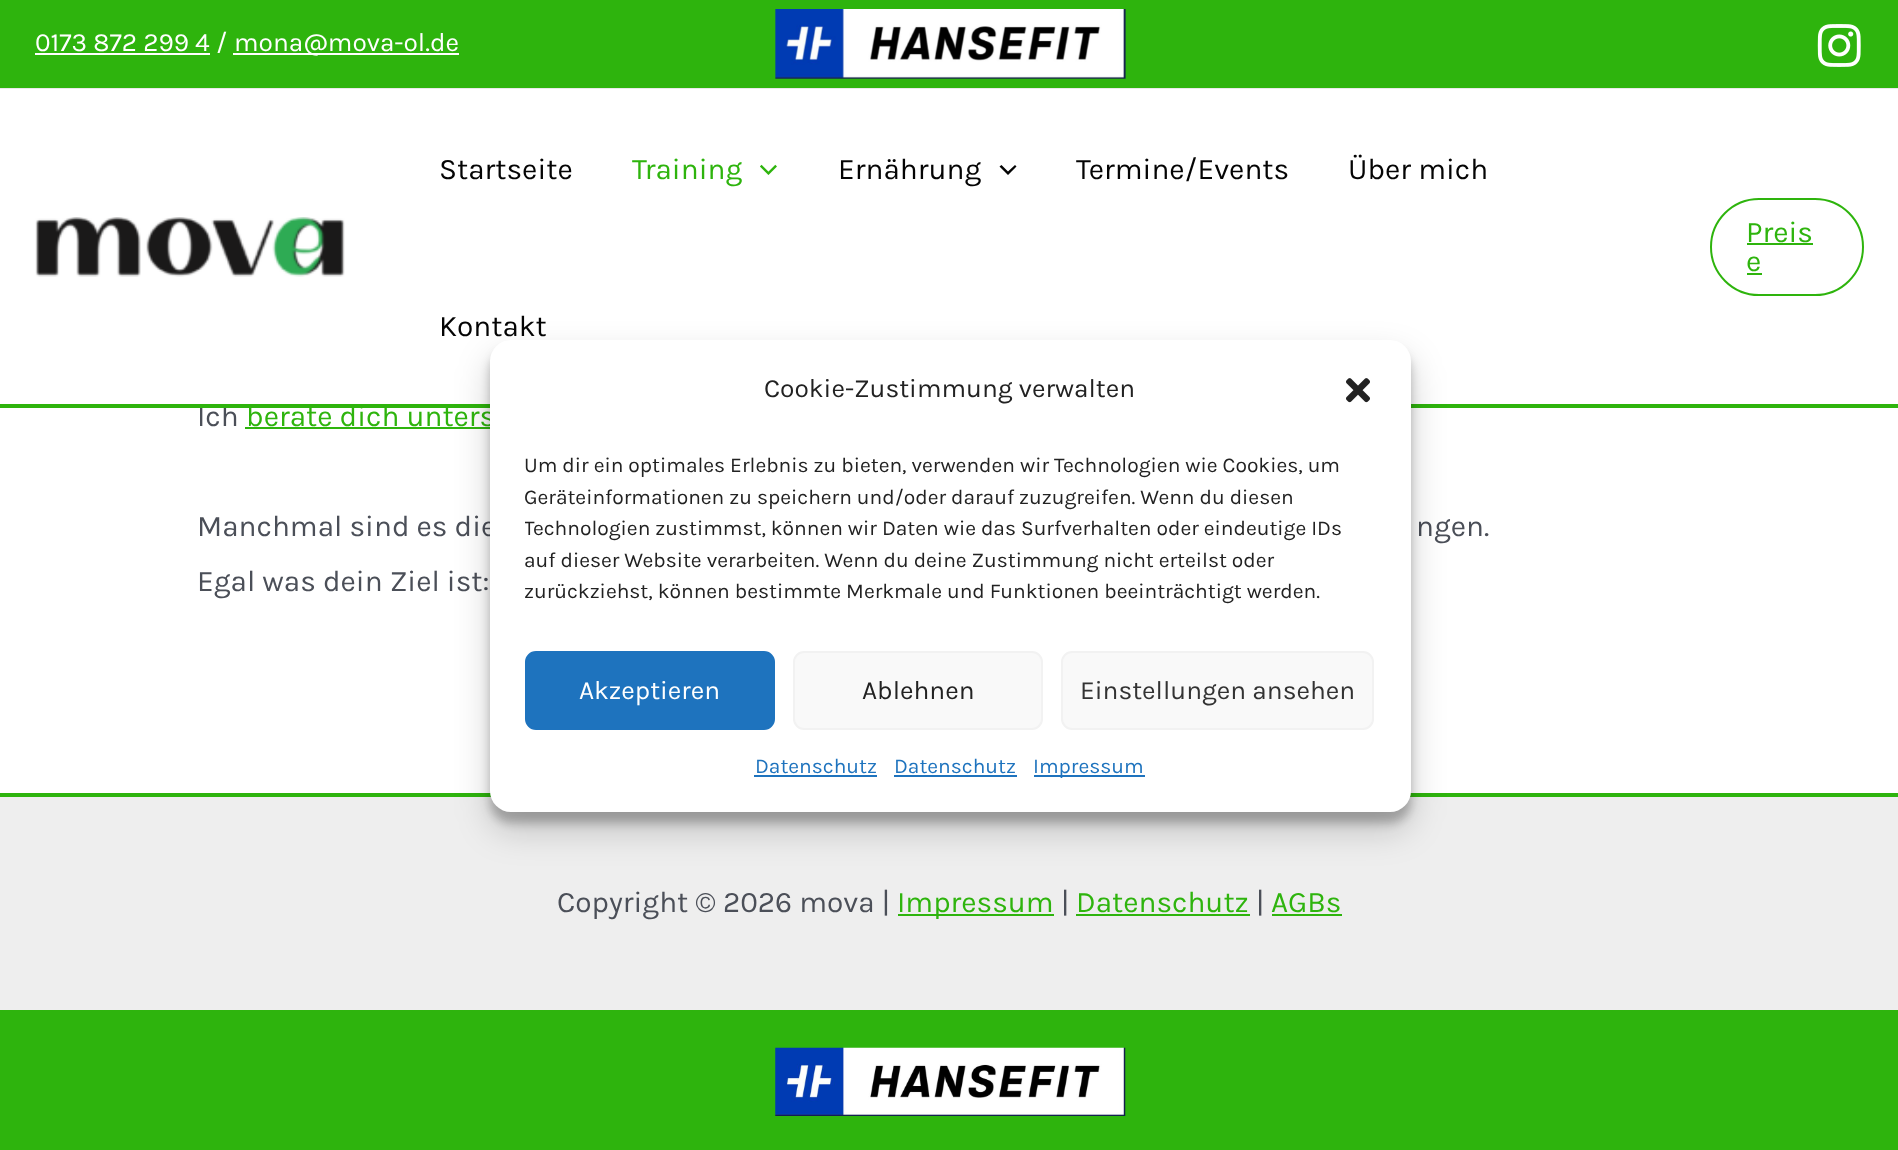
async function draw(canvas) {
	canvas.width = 1898;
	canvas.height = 1150;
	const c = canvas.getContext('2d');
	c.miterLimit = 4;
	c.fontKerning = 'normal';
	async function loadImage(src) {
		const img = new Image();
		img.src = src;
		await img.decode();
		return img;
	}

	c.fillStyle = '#fff';
	c.fillRect(0, 0, 1898, 1150);
	c.fillStyle = '#2eb40d';
	c.fillRect(0, 0, 1898, 88);
	c.fillStyle = '#eaeaea';
	c.fillRect(0, 88, 1898, 1);
	c.font = '26.25px Karla';
	c.fillStyle = '#fff';
	c.fillText('0173 872 299 4 /', 35, 51);
	c.fillRect(35, 53, 175, 2);
	c.fillRect(233, 53, 226, 2);
	c.fillText('mona@mova-ol.de', 234, 51);
	c.drawImage(await loadImage('img1.png'), 775, 9, 351, 70);
	c.drawImage(await loadImage('img2.png'), 1817, 24, 44, 43);
	c.font = '29.75px Karla';
	c.fillStyle = '#4b4f58';
	c.fillText('Ich', 197, 426);
	c.fillStyle = '#2eb40d';
	c.fillRect(0, 404, 1898, 4);
	c.drawImage(await loadImage('img3.png'), 35, 217, 310, 60);
	c.fillStyle = '#040404';
	c.fillText('Startseite', 439, 179);
	c.fillStyle = '#2eb40d';
	c.fillText('Training', 632, 179);
	c.drawImage(await loadImage('img4.png'), 760, 164, 17, 11);
	c.fillStyle = '#040404';
	c.fillText('Ernährung', 838, 179);
	c.beginPath();
	c.moveTo(999.5, 166.5);
	c.lineTo(1008, 175);
	c.lineTo(1016.5, 166.5);
	c.lineTo(1015, 165);
	c.lineTo(1008, 171.5);
	c.lineTo(1001.5, 165);
	c.closePath();
	c.fill();
	for (const [text, x, y] of [
		['Termine/Events', 1076, 179],
		['Über mich', 1348, 179],
		['Kontakt', 439, 336],
	]) {
		c.fillText(text, x, y);
	}
	c.beginPath();
	c.roundRect(1711, 199, 152, 96, 48);
	c.strokeStyle = '#2eb40d';
	c.lineWidth = 2;
	c.stroke();
	c.fillStyle = '#2eb40d';
	c.fillText('Preis', 1746, 242);
	c.fillRect(1747, 243, 66, 2);
	c.fillText('e', 1746, 271);
	c.fillRect(1747, 273, 15, 2);
	c.fillText('berate dich unters', 246, 426);
	c.fillRect(245, 427, 245, 2);
	c.fillStyle = '#4b4f58';
	for (const [text, x, y] of [
		['Manchmal sind es die', 197, 536],
		['ngen.', 1416, 536],
		['Egal was dein Ziel ist:', 197, 591],
	]) {
		c.fillText(text, x, y);
	}
	c.fillStyle = '#eee';
	c.fillRect(0, 797, 1898, 213);
	c.fillStyle = '#2eb40d';
	c.fillRect(0, 793, 1898, 4);
	c.fillStyle = '#4b4f58';
	c.fillText('Copyright © 2026 mova |', 557, 912);
	c.fillStyle = '#2eb40d';
	c.fillRect(898, 914, 156, 2);
	c.fillText('Impressum', 897, 912);
	c.fillStyle = '#4b4f58';
	c.fillText('|', 1061, 912);
	c.fillStyle = '#2eb40d';
	c.fillText('Datenschutz', 1076, 912);
	c.fillRect(1076, 914, 174, 2);
	c.fillStyle = '#4b4f58';
	c.fillText('|', 1256, 912);
	c.fillStyle = '#2eb40d';
	c.fillText('AGBs', 1271, 912);
	c.fillRect(1272, 914, 70, 2);
	c.fillRect(0, 1010, 1898, 140);
	c.drawImage(await loadImage('img5.png'), 775, 1047, 351, 69);
	c.fillStyle = '#0000003b';
	c.filter = 'blur(5px)';
	c.beginPath();
	c.roundRect(490, 350, 921, 473, 21);
	c.fill();
	c.filter = 'none';
	c.fillStyle = '#00000030';
	c.filter = 'blur(17.5px)';
	c.beginPath();
	c.roundRect(490, 357, 921, 473, 21);
	c.fill();
	c.filter = 'none';
	c.fillStyle = '#fff';
	c.beginPath();
	c.roundRect(490, 340, 921, 472, 21);
	c.fill();
	c.font = '26.25px Karla';
	c.fillStyle = '#222';
	c.fillText('Cookie-Zustimmung verwalten', 764, 397);
	c.drawImage(await loadImage('img6.png'), 1346, 378, 24, 25);
	c.font = '21px Karla';
	c.fillText('Um dir ein optimales Erlebnis zu bieten, verwenden wir Technologien wie Cookies, um', 524, 472);
	c.fillText('Geräteinformationen zu speichern und/oder darauf zuzugreifen. Wenn du diesen', 524, 504);
	c.save();
	c.beginPath();
	c.rect(525, 450, 851, 166);
	c.clip();
	c.fillText('Technologien zustimmst, können wir Daten wie das Surfverhalten oder eindeutige IDs', 524, 535);
	c.restore();
	c.fillText('auf dieser Website verarbeiten. Wenn du deine Zustimmung nicht erteilst oder', 524, 567);
	c.fillText('zurückziehst, können bestimmte Merkmale und Funktionen beeinträchtigt werden.', 524, 598);
	c.fillStyle = '#1e73be';
	c.beginPath();
	c.roundRect(526, 652, 248, 77, 10);
	c.fill();
	c.strokeStyle = '#1e73be';
	c.stroke();
	c.font = '26.25px Karla';
	c.fillStyle = '#fff';
	c.fillText('Akzeptieren', 579, 699);
	c.fillStyle = '#f9f9f9';
	c.beginPath();
	c.roundRect(794, 652, 248, 77, 10);
	c.fill();
	c.strokeStyle = '#f2f2f2';
	c.stroke();
	c.fillStyle = '#222';
	c.fillText('Ablehnen', 862, 699);
	c.fillStyle = '#f9f9f9';
	c.beginPath();
	c.roundRect(1062, 652, 311, 77, 10);
	c.fill();
	c.stroke();
	c.fillStyle = '#333';
	c.fillText('Einstellungen ansehen', 1080, 699);
	c.font = '21px Karla';
	c.fillStyle = '#1e73be';
	c.fillText('Datenschutz', 755, 773);
	c.fillRect(754, 775, 123, 2);
	c.fillText('Datenschutz', 894, 773);
	c.fillRect(894, 775, 123, 2);
	c.fillRect(1034, 775, 111, 2);
	c.fillText('Impressum', 1033, 773);
}

draw(document.querySelector('canvas'));
